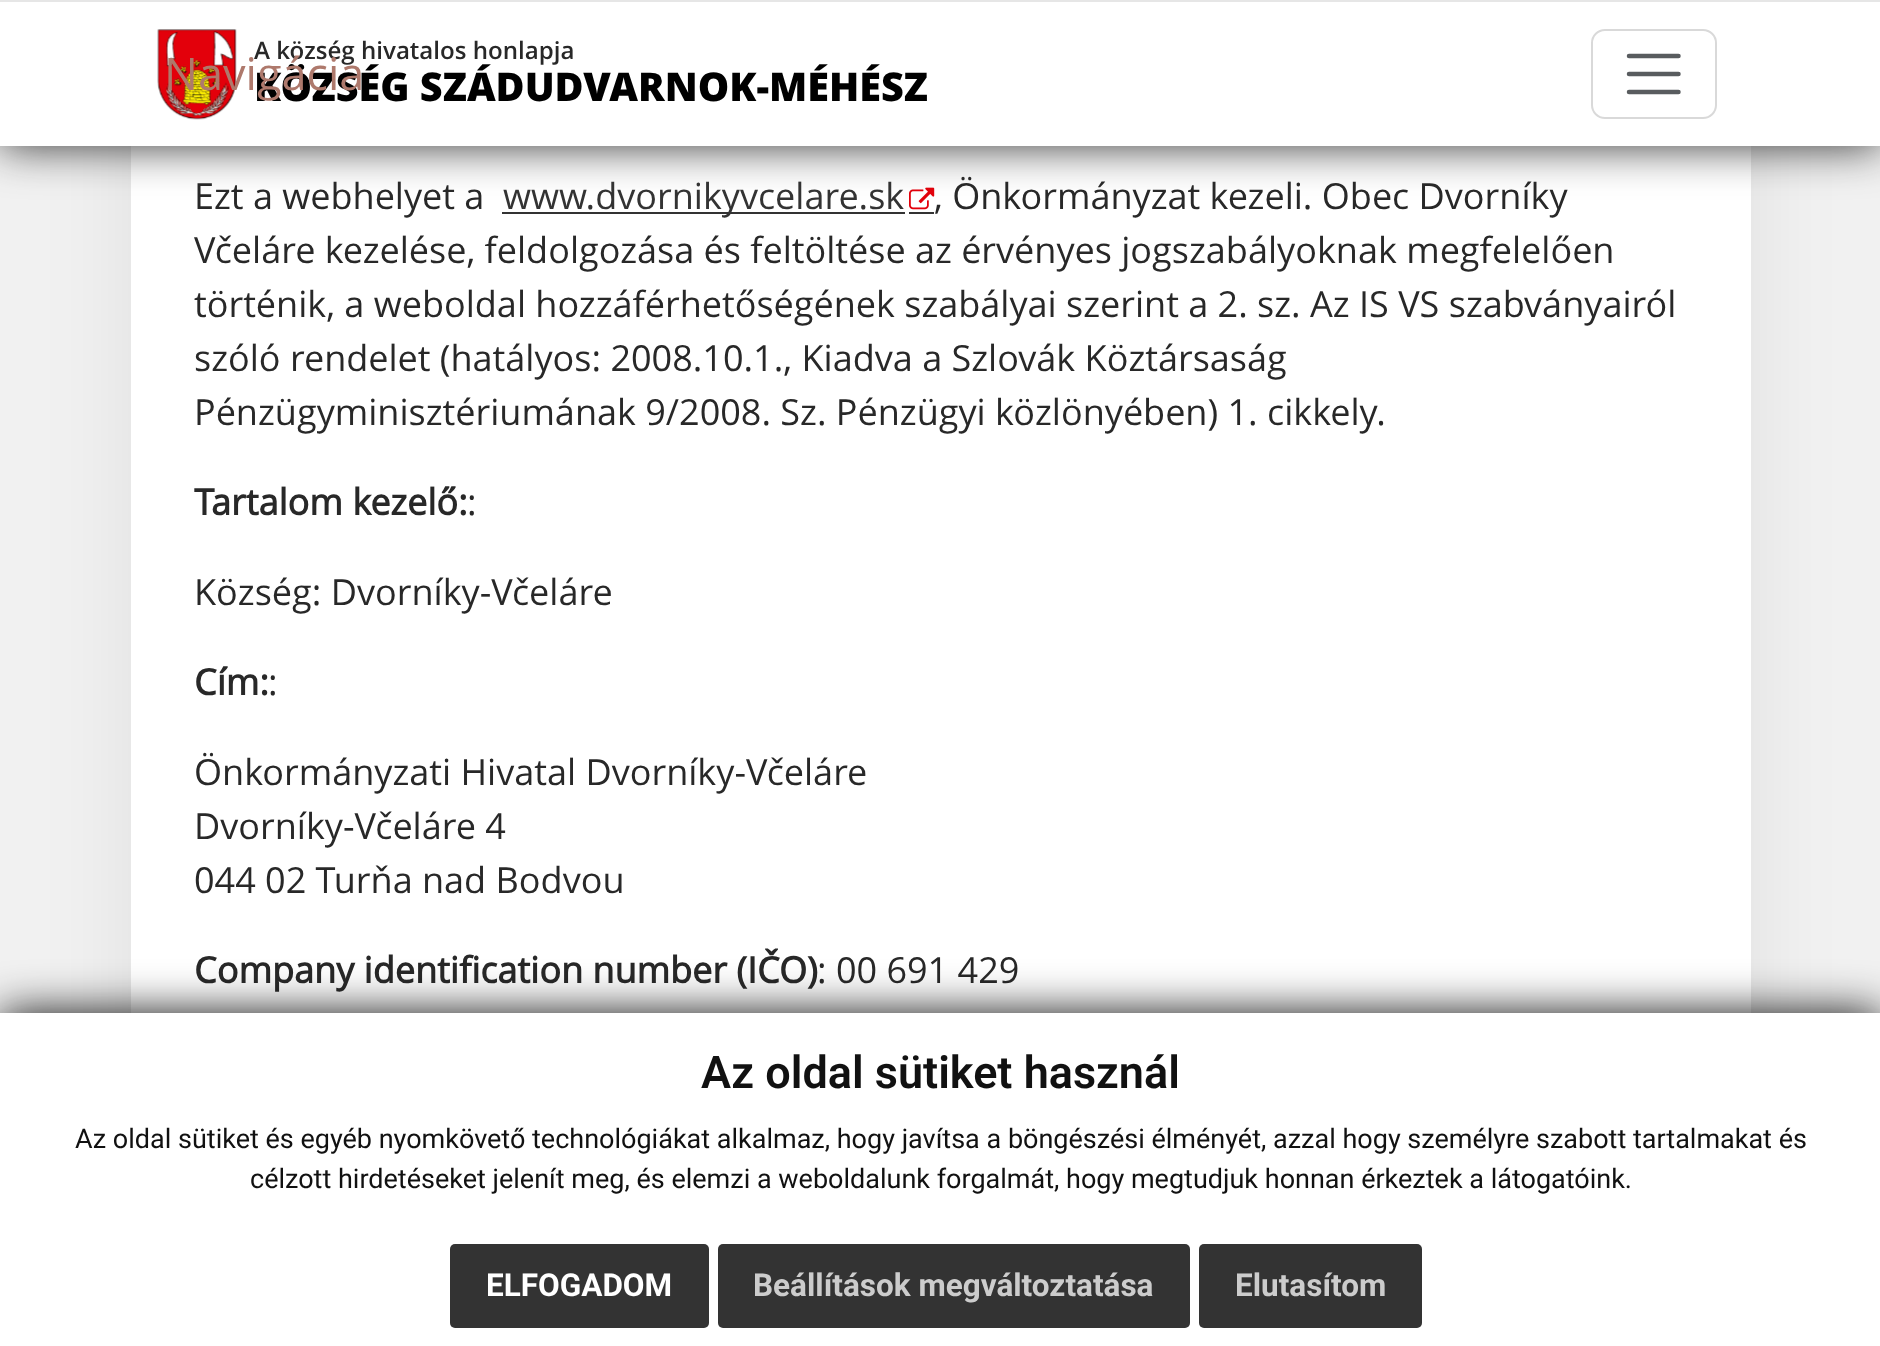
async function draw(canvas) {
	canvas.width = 1880;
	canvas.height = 1346;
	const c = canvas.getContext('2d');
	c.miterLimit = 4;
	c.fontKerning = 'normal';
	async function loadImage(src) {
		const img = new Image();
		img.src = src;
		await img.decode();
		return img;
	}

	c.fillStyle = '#f1f1f1';
	c.fillRect(0, 0, 1880, 1346);
	c.fillStyle = '#00000012';
	c.filter = 'blur(45px)';
	c.beginPath();
	c.rect(131, -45, 1620, 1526);
	c.fill();
	c.filter = 'none';
	for (const [x, y, w, h, color] of [
		[131, 146, 1620, 867, '#fff'],
		[502, 212, 403, 2, '#333'],
		[909, 212, 25, 2, '#333'],
	]) {
		c.fillStyle = color;
		c.fillRect(x, y, w, h);
	}
	c.drawImage(await loadImage('img2.png'), 909, 187, 26, 23);
	c.filter = 'blur(22.5px)';
	c.beginPath();
	c.rect(0, 0, 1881, 146);
	c.fill();
	c.filter = 'none';
	c.fillStyle = '#fff';
	c.fillRect(0, 2, 1880, 144);
	c.fillStyle = '#e6e6e6';
	c.fillRect(0, 0, 1880, 2);
	c.drawImage(await loadImage('img1.png'), 157, 29, 80, 91);
	c.font = '600 24.1px Open Sans';
	c.fillStyle = '#282828';
	c.fillText('A község hivatalos honlapja', 254, 59);
	c.font = '800 39.6px Open Sans';
	c.fillStyle = '#000';
	c.fillText('KÖZSÉG SZÁDUDVARNOK-MÉHÉSZ', 254, 101);
	c.font = '45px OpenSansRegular';
	c.fillStyle = '#ae796c';
	c.fillText('Navigácia', 164, 90);
	c.beginPath();
	c.roundRect(1592, 30, 124, 88, 13);
	c.strokeStyle = '#d9d9d9';
	c.lineWidth = 2;
	c.stroke();
	c.beginPath();
	c.moveTo(1629, 56);
	c.lineTo(1678.5, 56);
	c.moveTo(1629, 74);
	c.lineTo(1678.5, 74);
	c.moveTo(1629, 92);
	c.lineTo(1678.5, 92);
	c.strokeStyle = '#595c5f';
	c.lineWidth = 4.5;
	c.lineCap = 'round';
	c.stroke();
	c.font = '36px OpenSansRegular';
	c.fillStyle = '#282828';
	c.fillText('Ezt a webhelyet a', 194, 209);
	c.fillStyle = '#333';
	c.fillText('www.dvornikyvcelare.sk', 503, 209);
	c.fillStyle = '#282828';
	for (const [text, x, y] of [
		[', Önkormányzat kezeli. Obec Dvorníky', 934, 209],
		['Včeláre kezelése, feldolgozása és feltöltése az érvényes jogszabályoknak megfelelően', 194, 263],
		['történik, a weboldal hozzáférhetőségének szabályai szerint a 2. sz. Az IS VS szabványairól', 194, 317],
		['szóló rendelet (hatályos: 2008.10.1., Kiadva a Szlovák Köztársaság', 194, 371],
		['Pénzügyminisztériumának 9/2008. Sz. Pénzügyi közlönyében) 1. cikkely.', 194, 425],
	]) {
		c.fillText(text, x, y);
	}
	c.font = 'bold 36px OpenSansRegular';
	c.fillText('Tartalom kezelő:', 194, 515);
	c.font = '36px OpenSansRegular';
	c.fillText(':', 467, 515);
	c.fillText('Község: Dvorníky-Včeláre', 194, 605);
	c.font = 'bold 36px OpenSansRegular';
	c.fillText('Cím:', 194, 695);
	c.font = '36px OpenSansRegular';
	for (const [text, x, y] of [
		[':', 268, 695],
		['Önkormányzati Hivatal Dvorníky-Včeláre', 194, 785],
		['Dvorníky-Včeláre 4', 194, 839],
		['044 02 Turňa nad Bodvou', 194, 893],
	]) {
		c.fillText(text, x, y);
	}
	c.font = 'bold 36px OpenSansRegular';
	c.fillText('Company identification number (IČO)', 194, 983);
	c.font = '36px OpenSansRegular';
	c.fillText(': 00 691 429', 817, 983);
	c.fillStyle = '#111';
	c.filter = 'blur(22.5px)';
	c.beginPath();
	c.rect(0, 1013, 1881, 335);
	c.fill();
	c.filter = 'none';
	c.fillStyle = '#fff';
	c.fillRect(0, 1013, 1880, 333);
	c.font = '600 45px Roboto';
	c.fillStyle = '#111';
	c.fillText('Az oldal sütiket használ', 701, 1088);
	c.font = '27px Roboto';
	c.fillText('Az oldal sütiket és egyéb nyomkövető technológiákat alkalmaz, hogy javítsa a böngészési élményét, azzal hogy személyre szabott tartalmakat és', 75, 1148);
	c.fillText('célzott hirdetéseket jelenít meg, és elemzi a weboldalunk forgalmát, hogy megtudjuk honnan érkeztek a látogatóink.', 250, 1188);
	c.fillStyle = '#333';
	c.beginPath();
	c.roundRect(450, 1244, 259, 84, 5);
	c.fill();
	c.font = 'bold 31.5px Roboto';
	c.fillStyle = '#fff';
	c.fillText('ELFOGADOM', 486, 1296);
	c.fillStyle = '#333';
	c.beginPath();
	c.roundRect(718, 1244, 472, 84, 5);
	c.fill();
	c.fillStyle = '#ccc';
	c.fillText('Beállítások megváltoztatása', 753, 1296);
	c.fillStyle = '#333';
	c.beginPath();
	c.roundRect(1199, 1244, 223, 84, 5);
	c.fill();
	c.fillStyle = '#ccc';
	c.fillText('Elutasítom', 1235, 1296);
}

draw(document.querySelector('canvas'));
